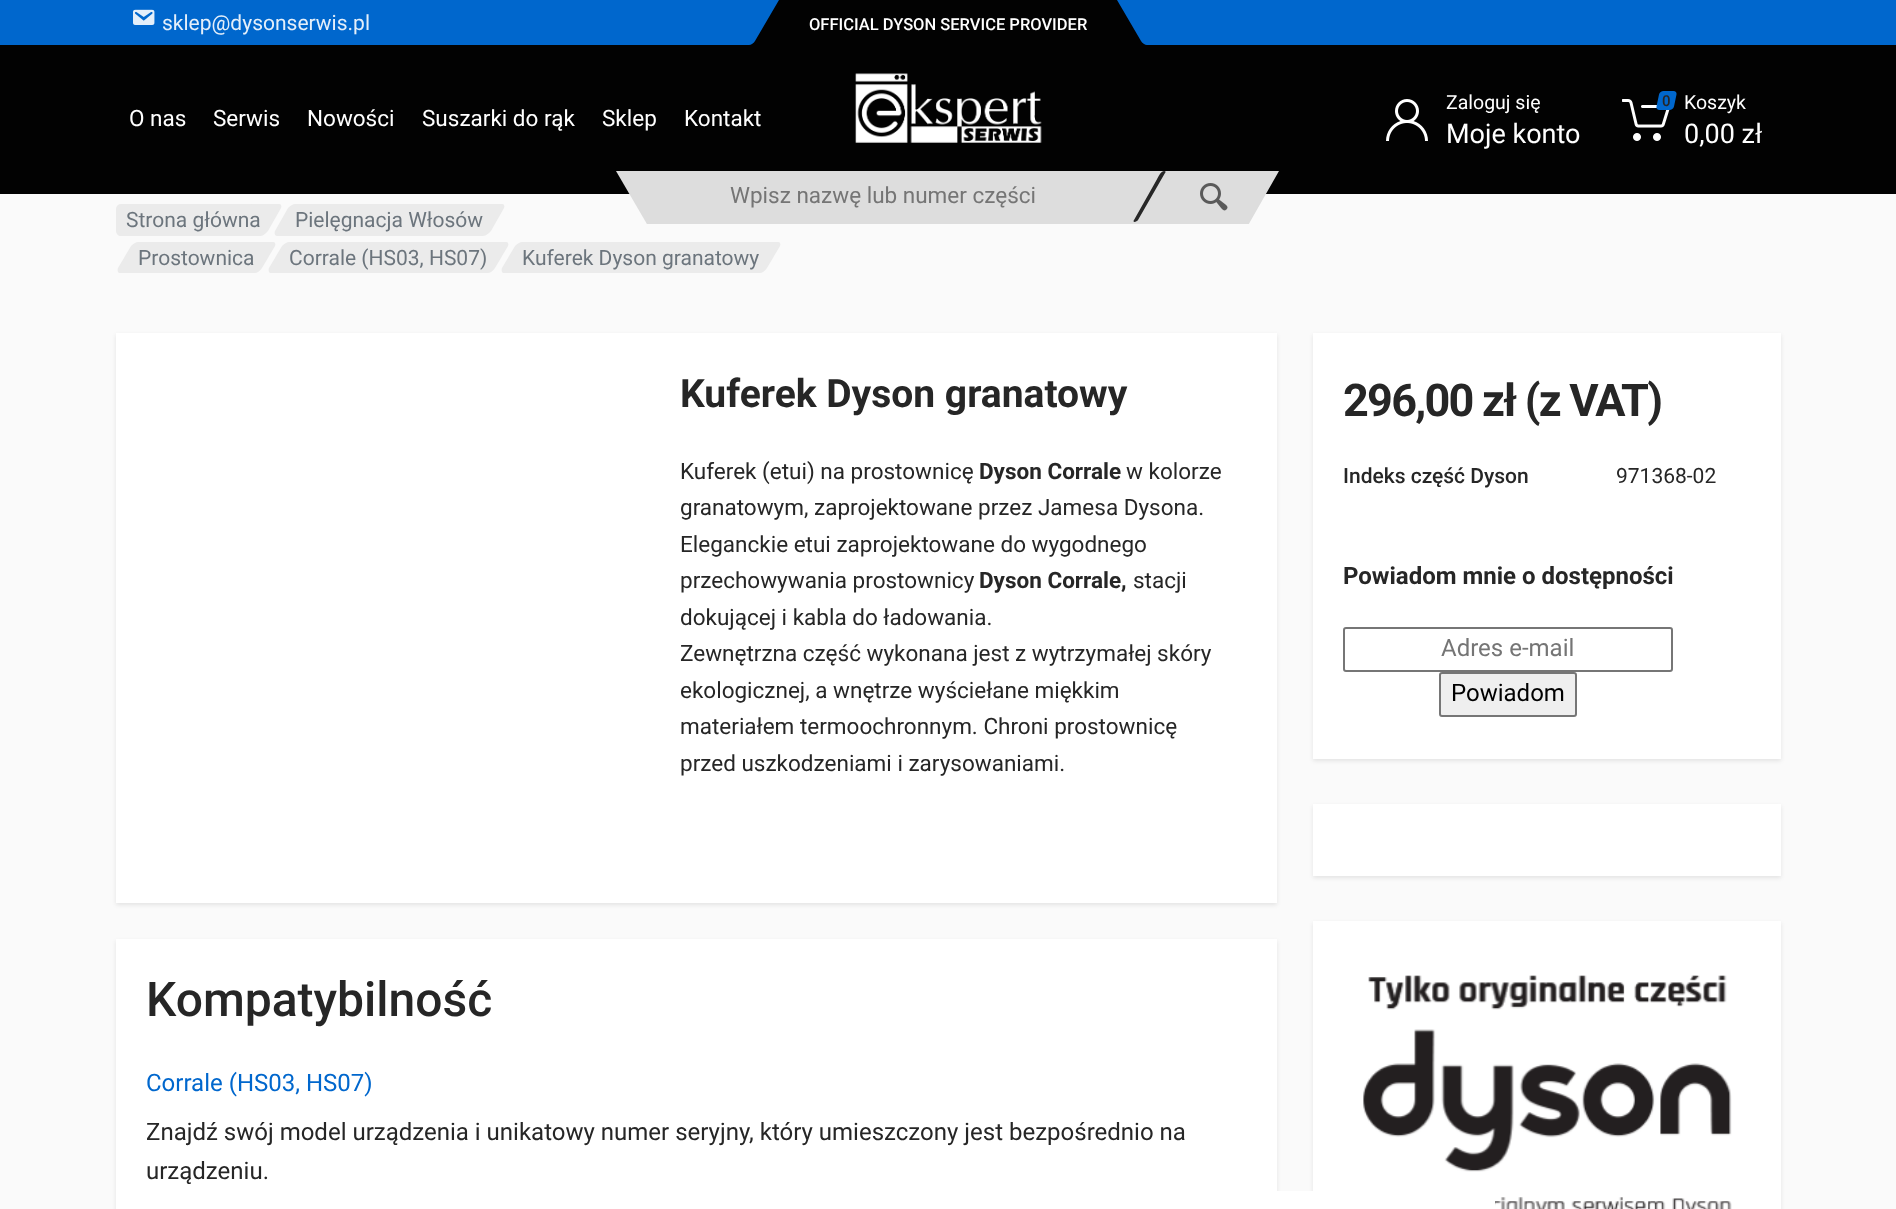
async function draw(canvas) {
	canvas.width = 1896;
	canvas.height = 1209;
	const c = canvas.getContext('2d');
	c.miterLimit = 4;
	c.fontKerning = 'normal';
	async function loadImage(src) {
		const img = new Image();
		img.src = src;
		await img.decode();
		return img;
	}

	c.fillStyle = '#fafafa';
	c.fillRect(0, 0, 1896, 1209);
	c.fillStyle = '#020202';
	c.fillRect(0, 0, 1896, 194);
	c.fillStyle = '#0067cd';
	c.beginPath();
	c.moveTo(0, 0);
	c.lineTo(779, 0);
	c.lineTo(755, 41);
	c.bezierCurveTo(754, 43, 751, 45, 749, 45);
	c.lineTo(-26, 45);
	c.closePath();
	c.fill();
	c.beginPath();
	c.moveTo(1117, 0);
	c.lineTo(1896, 0);
	c.lineTo(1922, 45);
	c.lineTo(1147, 45);
	c.bezierCurveTo(1145, 45, 1142, 43, 1141, 41);
	c.closePath();
	c.fill();
	c.drawImage(await loadImage('img1.png'), 133, 9, 22, 16);
	c.font = '21px Roboto';
	c.fillStyle = '#e4effa';
	c.fillText('sklep@dysonserwis.pl', 162, 30);
	c.font = '500 16.5px Roboto';
	c.fillStyle = '#fff';
	c.fillText('OFFICIAL DYSON SERVICE PROVIDER', 809, 30);
	c.drawImage(await loadImage('img2.png'), 855, 73, 187, 70);
	c.font = '22.5px Roboto';
	for (const [text, x, y] of [
		['O nas', 129, 126],
		['Serwis', 213, 126],
		['Nowości', 307, 126],
		['Suszarki do rąk', 422, 126],
		['Sklep', 602, 126],
		['Kontakt', 684, 126],
	]) {
		c.fillText(text, x, y);
	}
	c.drawImage(await loadImage('img3.png'), 1386, 99, 42, 42);
	c.font = '19.5px Roboto';
	c.fillText('Zaloguj się', 1446, 109);
	c.font = '27px Roboto';
	c.fillText('Moje konto', 1446, 143);
	c.drawImage(await loadImage('img4.png'), 1622, 99, 48, 42);
	c.fillStyle = '#0067cd';
	c.beginPath();
	c.moveTo(1663.5, 91);
	c.lineTo(1673.5, 91);
	c.bezierCurveTo(1675.5, 91, 1677, 92.5, 1676.5, 94.5);
	c.lineTo(1674, 106.5);
	c.bezierCurveTo(1673.5, 108.5, 1671.5, 110, 1669.5, 110);
	c.lineTo(1659.5, 110);
	c.bezierCurveTo(1657.5, 110, 1656, 108.5, 1656.5, 106.5);
	c.lineTo(1659, 94.5);
	c.bezierCurveTo(1659.5, 92.5, 1661.5, 91, 1663.5, 91);
	c.closePath();
	c.fill();
	c.font = '500 15px Roboto';
	c.fillStyle = '#262626';
	c.fillText('0', 1662, 106);
	c.font = '19.5px Roboto';
	c.fillStyle = '#fff';
	c.fillText('Koszyk', 1684, 109);
	c.font = '27px Roboto';
	c.fillText('0,00 zł', 1684, 143);
	c.save();
	c.beginPath();
	c.rect(602, 171, 346, 53);
	c.clip();
	c.fillStyle = '#ddd';
	c.beginPath();
	c.moveTo(616, 171);
	c.lineTo(963, 171);
	c.lineTo(1006, 246);
	c.lineTo(663, 246);
	c.lineTo(660, 245);
	c.lineTo(658, 243);
	c.closePath();
	c.fill();
	c.restore();
	c.save();
	c.beginPath();
	c.rect(948, 171, 347, 53);
	c.clip();
	c.fillStyle = '#ddd';
	c.beginPath();
	c.moveTo(933, 171);
	c.lineTo(1279, 171);
	c.lineTo(1238, 243);
	c.bezierCurveTo(1237, 245, 1235, 246, 1233, 246);
	c.lineTo(890, 246);
	c.closePath();
	c.fill();
	c.restore();
	c.font = '22.5px Roboto';
	c.fillStyle = '#757575';
	c.fillText('Wpisz nazwę lub numer części', 730, 203);
	c.fillStyle = '#272727';
	c.beginPath();
	c.moveTo(1164, 171);
	c.bezierCurveTo(1166, 171, 1166, 172, 1165, 173);
	c.lineTo(1138, 220);
	c.bezierCurveTo(1137, 222, 1132, 223, 1134, 220);
	c.lineTo(1156, 181);
	c.bezierCurveTo(1157, 180, 1160, 171, 1164, 171);
	c.closePath();
	c.fill();
	c.drawImage(await loadImage('img5.png'), 1200, 183, 28, 28);
	c.fillStyle = '#ebebeb';
	c.beginPath();
	c.moveTo(138, 204);
	c.lineTo(279, 204);
	c.bezierCurveTo(281, 204, 282, 206, 281, 208);
	c.lineTo(268, 231);
	c.bezierCurveTo(266, 233, 263, 236, 261, 236);
	c.lineTo(120, 236);
	c.bezierCurveTo(118, 236, 117, 233, 118, 231);
	c.lineTo(131, 208);
	c.bezierCurveTo(133, 206, 136, 204, 138, 204);
	c.closePath();
	c.fill();
	c.beginPath();
	c.roundRect(116, 204, 138, 32, 5);
	c.fill();
	c.font = '21px Roboto';
	c.fillStyle = '#6c757d';
	c.fillText('Strona główna', 126, 227);
	c.fillStyle = '#ebebeb';
	c.beginPath();
	c.moveTo(295, 204);
	c.lineTo(502, 204);
	c.bezierCurveTo(504, 204, 505, 206, 504, 208);
	c.lineTo(491, 231);
	c.bezierCurveTo(489, 233, 486, 236, 483, 236);
	c.lineTo(277, 236);
	c.bezierCurveTo(275, 236, 274, 233, 275, 231);
	c.lineTo(288, 208);
	c.bezierCurveTo(290, 206, 293, 204, 295, 204);
	c.closePath();
	c.fill();
	c.fillStyle = '#6c757d';
	c.fillText('Pielęgnacja Włosów', 295, 227);
	c.fillStyle = '#ebebeb';
	c.beginPath();
	c.moveTo(138, 242);
	c.lineTo(273, 242);
	c.bezierCurveTo(275, 242, 276, 244, 275, 246);
	c.lineTo(262, 268);
	c.bezierCurveTo(260, 271, 257, 273, 255, 273);
	c.lineTo(120, 273);
	c.bezierCurveTo(118, 273, 117, 271, 118, 268);
	c.lineTo(131, 246);
	c.bezierCurveTo(133, 244, 136, 242, 138, 242);
	c.closePath();
	c.fill();
	c.fillStyle = '#6c757d';
	c.fillText('Prostownica', 138, 265);
	c.fillStyle = '#ebebeb';
	c.beginPath();
	c.moveTo(289, 242);
	c.lineTo(506, 242);
	c.bezierCurveTo(508, 242, 509, 244, 508, 246);
	c.lineTo(495, 268);
	c.bezierCurveTo(493, 271, 490, 273, 488, 273);
	c.lineTo(271, 273);
	c.bezierCurveTo(269, 273, 268, 271, 269, 268);
	c.lineTo(282, 246);
	c.bezierCurveTo(284, 244, 287, 242, 289, 242);
	c.closePath();
	c.fill();
	c.fillStyle = '#6c757d';
	c.fillText('Corrale (HS03, HS07)', 289, 265);
	c.fillStyle = '#ebebeb';
	c.beginPath();
	c.moveTo(522, 242);
	c.lineTo(778, 242);
	c.bezierCurveTo(780, 242, 781, 244, 780, 246);
	c.lineTo(767, 268);
	c.bezierCurveTo(765, 271, 762, 273, 760, 273);
	c.lineTo(504, 273);
	c.bezierCurveTo(502, 273, 501, 271, 502, 268);
	c.lineTo(515, 246);
	c.bezierCurveTo(517, 244, 520, 242, 522, 242);
	c.closePath();
	c.fill();
	c.fillStyle = '#6c757d';
	c.fillText('Kuferek Dyson granatowy', 522, 265);
	c.fillStyle = '#00000017';
	c.filter = 'blur(2px)';
	c.beginPath();
	c.rect(116, 335, 1161, 570);
	c.fill();
	c.filter = 'none';
	c.fillStyle = '#fff';
	c.fillRect(116, 333, 1161, 570);
	c.font = 'bold 39px Roboto';
	c.fillStyle = '#262626';
	c.fillText('Kuferek Dyson granatowy', 680, 407);
	c.fillStyle = '#00000017';
	c.filter = 'blur(2px)';
	c.beginPath();
	c.rect(1313, 335, 468, 426);
	c.fill();
	c.filter = 'none';
	c.fillStyle = '#fff';
	c.fillRect(1313, 333, 468, 426);
	c.letterSpacing = '-1.75px';
	c.font = 'bold 45px Roboto';
	c.fillStyle = '#262626';
	c.fillText('296,00 zł (z VAT)', 1343, 416);
	c.letterSpacing = '0px';
	c.font = '500 21px Roboto';
	c.fillText('Indeks część Dyson', 1343, 483);
	c.font = '21px Roboto';
	c.fillText('971368-02', 1616, 483);
	c.font = 'bold 24px Roboto';
	c.fillText('Powiadom mnie o dostępności', 1343, 584);
	c.beginPath();
	c.roundRect(1344, 628, 328, 43, 2);
	c.strokeStyle = '#767676';
	c.lineWidth = 2;
	c.stroke();
	c.font = '24px Roboto';
	c.fillStyle = '#757575';
	c.fillText('Adres e-mail', 1441, 656);
	c.fillStyle = '#efefef';
	c.beginPath();
	c.roundRect(1440, 673, 136, 43, 2);
	c.fill();
	c.stroke();
	c.fillStyle = '#000';
	c.fillText('Powiadom', 1451, 701);
	c.fillStyle = '#00000017';
	c.filter = 'blur(2px)';
	c.beginPath();
	c.rect(1313, 806, 468, 72);
	c.fill();
	c.filter = 'none';
	c.fillStyle = '#fff';
	c.fillRect(1313, 804, 468, 72);
	c.fillStyle = '#00000017';
	c.filter = 'blur(2px)';
	c.beginPath();
	c.rect(1313, 923, 468, 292);
	c.fill();
	c.filter = 'none';
	c.fillStyle = '#fff';
	c.fillRect(1313, 921, 468, 288);
	c.drawImage(await loadImage('img6.png'), 1363, 975, 369, 234);
	c.font = '22.5px Roboto';
	c.fillStyle = '#262626';
	c.fillText('Kuferek (etui) na prostownicę', 680, 479);
	c.font = 'bold 22.5px Roboto';
	c.fillText('Dyson Corrale', 979, 479);
	c.font = '22.5px Roboto';
	for (const [text, x, y] of [
		['w kolorze', 1126, 479],
		['granatowym, zaprojektowane przez Jamesa Dysona.', 680, 515],
		['Eleganckie etui zaprojektowane do wygodnego', 680, 552],
		['przechowywania prostownicy', 680, 588],
	]) {
		c.fillText(text, x, y);
	}
	c.font = 'bold 22.5px Roboto';
	c.fillText('Dyson Corrale,', 979, 588);
	c.font = '22.5px Roboto';
	for (const [text, x, y] of [
		['stacji', 1133, 588],
		['dokującej i kabla do ładowania.', 680, 625],
		['Zewnętrzna część wykonana jest z wytrzymałej skóry', 680, 661],
		['ekologicznej, a wnętrze wyściełane miękkim', 680, 698],
		['materiałem termoochronnym. Chroni prostownicę', 680, 734],
		['przed uszkodzeniami i zarysowaniami.', 680, 771],
	]) {
		c.fillText(text, x, y);
	}
	c.fillStyle = '#00000017';
	c.filter = 'blur(2px)';
	c.beginPath();
	c.rect(116, 941, 1161, 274);
	c.fill();
	c.filter = 'none';
	c.fillStyle = '#fff';
	c.fillRect(116, 939, 1161, 270);
	c.font = '500 48px Roboto';
	c.fillStyle = '#262626';
	c.fillText('Kompatybilność', 146, 1016);
	c.font = '24px Roboto';
	c.fillStyle = '#0067cd';
	c.fillText('Corrale (HS03, HS07)', 146, 1091);
	c.fillStyle = '#262626';
	c.fillText('Znajdź swój model urządzenia i unikatowy numer seryjny, który umieszczony jest bezpośrednio na', 146, 1140);
	c.fillText('urządzeniu.', 146, 1179);
	c.fillStyle = '#fff';
	c.fillRect(1277, 1191, 218, 18);
}

draw(document.querySelector('canvas'));
